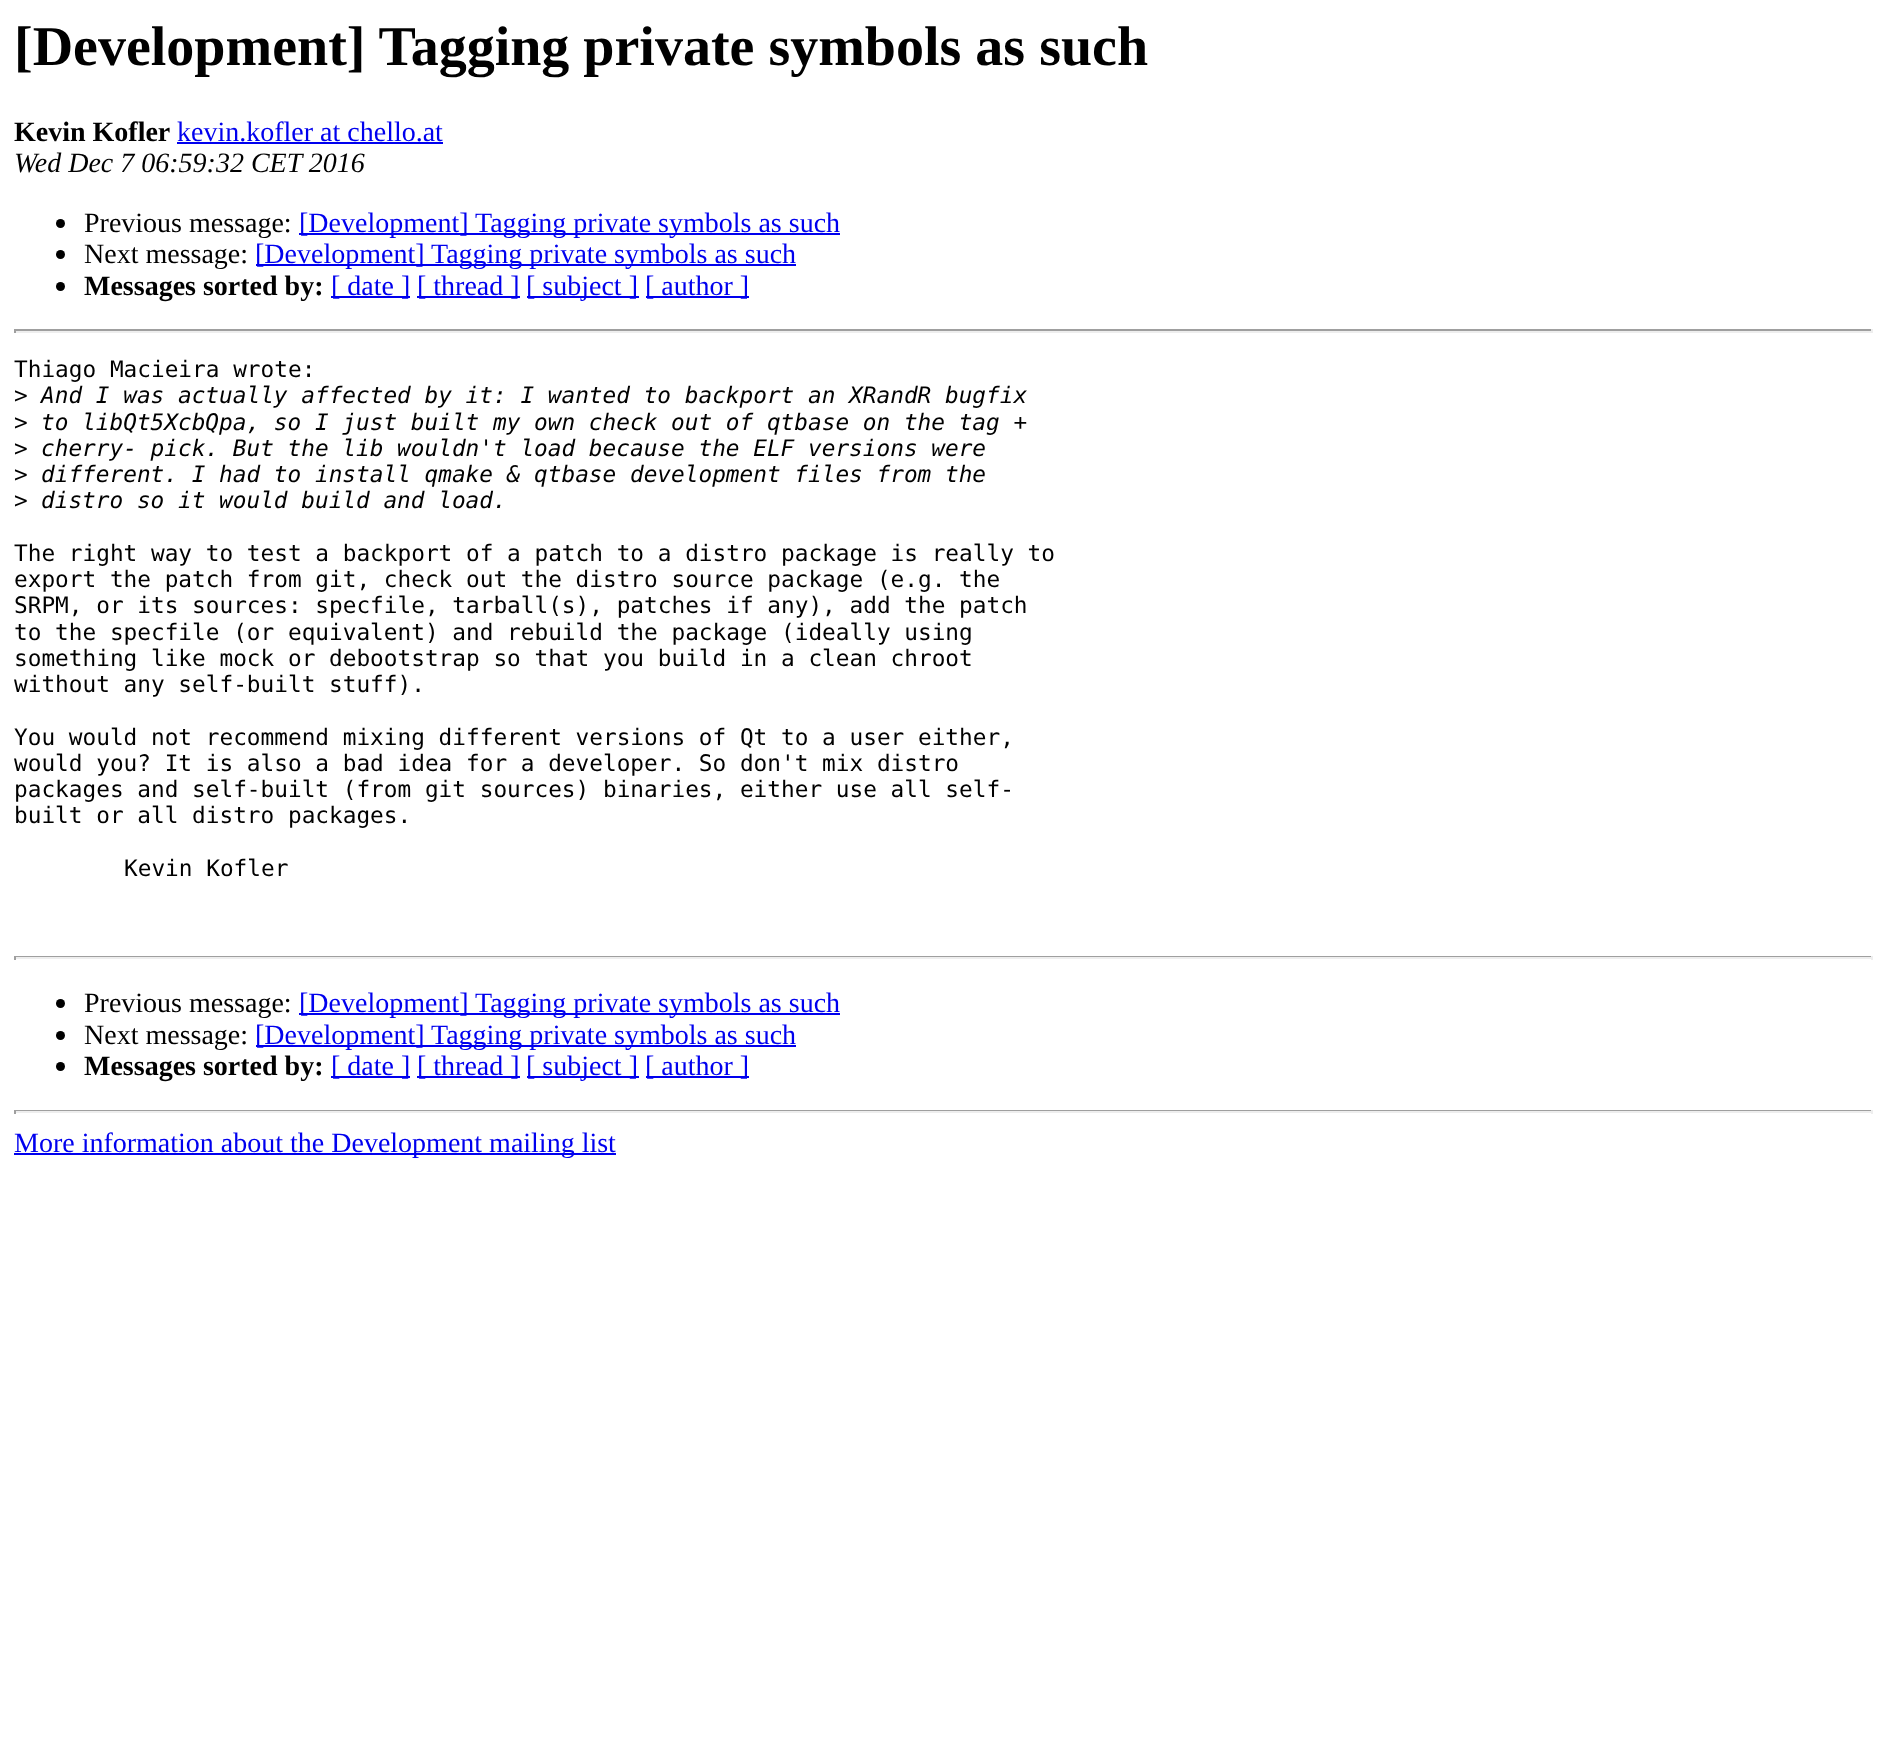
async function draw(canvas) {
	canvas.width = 1886;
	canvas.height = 1748;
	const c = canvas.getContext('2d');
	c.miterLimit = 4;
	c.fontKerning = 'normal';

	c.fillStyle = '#fff';
	c.fillRect(0, 0, 1886, 1748);
	c.font = 'bold 56px Liberation Serif';
	c.fillStyle = '#000';
	c.fillText('[Development] Tagging private symbols as such', 14, 65);
	c.font = 'bold 28px Liberation Serif';
	c.fillText('Kevin Kofler', 14, 141);
	c.font = '28px Liberation Serif';
	c.fillStyle = '#00e';
	c.fillText('kevin.kofler at chello.at', 177, 141);
	c.fillRect(177, 142, 266, 2);
	c.font = 'italic 28px Liberation Serif';
	c.fillStyle = '#000';
	c.fillText('Wed Dec 7 06:59:32 CET 2016', 14, 172);
	c.beginPath();
	c.arc(60.5, 223.5, 4.5, 0, 2 * Math.PI);
	c.fill();
	c.font = '28px Liberation Serif';
	c.fillText('Previous message:', 84, 232);
	c.fillStyle = '#00e';
	c.fillRect(299, 233, 541, 2);
	c.fillText('[Development] Tagging private symbols as such', 299, 232);
	c.fillStyle = '#000';
	c.beginPath();
	c.arc(60.5, 254.5, 4.5, 0, 2 * Math.PI);
	c.fill();
	c.fillText('Next message:', 84, 263);
	c.fillStyle = '#00e';
	c.fillRect(256, 264, 540, 2);
	c.fillText('[Development] Tagging private symbols as such', 255, 263);
	c.fillStyle = '#000';
	c.beginPath();
	c.arc(60.5, 286.5, 4.5, 0, 2 * Math.PI);
	c.fill();
	c.font = 'bold 28px Liberation Serif';
	c.fillText('Messages sorted by:', 84, 295);
	c.fillStyle = '#00e';
	c.fillRect(331, 296, 79, 2);
	c.font = '28px Liberation Serif';
	c.fillText('[ date ]', 331, 295);
	c.fillRect(417, 296, 103, 2);
	c.fillText('[ thread ]', 417, 295);
	c.fillRect(527, 296, 112, 2);
	c.fillText('[ subject ]', 526, 295);
	c.fillRect(646, 296, 103, 2);
	c.fillText('[ author ]', 645, 295);
	for (const [x, y, w, h, color] of [
		[14, 329, 1859, 2, '#9f9f9f'],
		[1871, 329, 2, 4, '#eee'],
		[14, 331, 1859, 2, '#eee'],
		[14, 329, 2, 4, '#9f9f9f'],
	]) {
		c.fillStyle = color;
		c.fillRect(x, y, w, h);
	}
	c.font = '22.75px DejaVu Sans Mono';
	c.fillStyle = '#000';
	c.fillText('Thiago Macieira wrote:', 14, 377);
	c.fillText('>', 14, 403);
	c.font = 'italic 22.75px DejaVu Sans Mono';
	c.fillText('And I was actually affected by it: I wanted to backport an XRandR bugfix', 41, 403);
	c.font = '22.75px DejaVu Sans Mono';
	c.fillText('>', 14, 430);
	c.font = 'italic 22.75px DejaVu Sans Mono';
	c.fillText('to libQt5XcbQpa, so I just built my own check out of qtbase on the tag +', 41, 430);
	c.font = '22.75px DejaVu Sans Mono';
	c.fillText('>', 14, 456);
	c.font = 'italic 22.75px DejaVu Sans Mono';
	c.fillText('cherry- pick. But the lib wouldn\'t load because the ELF versions were', 41, 456);
	c.font = '22.75px DejaVu Sans Mono';
	c.fillText('>', 14, 482);
	c.font = 'italic 22.75px DejaVu Sans Mono';
	c.fillText('different. I had to install qmake & qtbase development files from the', 41, 482);
	c.font = '22.75px DejaVu Sans Mono';
	c.fillText('>', 14, 508);
	c.font = 'italic 22.75px DejaVu Sans Mono';
	c.fillText('distro so it would build and load.', 41, 508);
	c.font = '22.75px DejaVu Sans Mono';
	for (const [text, x, y] of [
		['The right way to test a backport of a patch to a distro package is really to', 14, 561],
		['export the patch from git, check out the distro source package (e.g. the', 14, 587],
		['SRPM, or its sources: specfile, tarball(s), patches if any), add the patch', 14, 613],
		['to the specfile (or equivalent) and rebuild the package (ideally using', 14, 640],
		['something like mock or debootstrap so that you build in a clean chroot', 14, 666],
		['without any self-built stuff).', 14, 692],
		['You would not recommend mixing different versions of Qt to a user either,', 14, 745],
		['would you? It is also a bad idea for a developer. So don\'t mix distro', 14, 771],
		['packages and self-built (from git sources) binaries, either use all self-', 14, 797],
		['built or all distro packages.', 14, 823],
		['Kevin Kofler', 124, 876],
	]) {
		c.fillText(text, x, y);
	}
	for (const [x, y, w, h, color] of [
		[14, 956, 1859, 1, '#9f9f9f'],
		[1871, 956, 2, 4, '#eee'],
		[14, 957, 1859, 2, '#eee'],
		[14, 956, 2, 4, '#9f9f9f'],
	]) {
		c.fillStyle = color;
		c.fillRect(x, y, w, h);
	}
	c.fillStyle = '#000';
	c.beginPath();
	c.arc(60.5, 1003.5, 4.5, 0, 2 * Math.PI);
	c.fill();
	c.font = '28px Liberation Serif';
	c.fillText('Previous message:', 84, 1012);
	c.fillStyle = '#00e';
	c.fillRect(299, 1013, 541, 2);
	c.fillText('[Development] Tagging private symbols as such', 299, 1012);
	c.fillStyle = '#000';
	c.beginPath();
	c.arc(60.5, 1035.5, 4.5, 0, 2 * Math.PI);
	c.fill();
	c.fillText('Next message:', 84, 1044);
	c.fillStyle = '#00e';
	c.fillRect(256, 1045, 540, 2);
	c.fillText('[Development] Tagging private symbols as such', 255, 1044);
	c.fillStyle = '#000';
	c.beginPath();
	c.arc(60.5, 1066.5, 4.5, 0, 2 * Math.PI);
	c.fill();
	c.font = 'bold 28px Liberation Serif';
	c.fillText('Messages sorted by:', 84, 1075);
	c.fillStyle = '#00e';
	c.fillRect(331, 1076, 79, 2);
	c.font = '28px Liberation Serif';
	c.fillText('[ date ]', 331, 1075);
	c.fillRect(417, 1076, 103, 2);
	c.fillText('[ thread ]', 417, 1075);
	c.fillRect(527, 1076, 112, 2);
	c.fillText('[ subject ]', 526, 1075);
	c.fillRect(646, 1076, 103, 2);
	c.fillText('[ author ]', 645, 1075);
	for (const [x, y, w, h, color] of [
		[14, 1110, 1859, 1, '#9f9f9f'],
		[1871, 1110, 2, 4, '#eee'],
		[14, 1111, 1859, 2, '#eee'],
		[14, 1110, 2, 4, '#9f9f9f'],
		[14, 1153, 602, 2, '#00e'],
	]) {
		c.fillStyle = color;
		c.fillRect(x, y, w, h);
	}
	c.fillText('More information about the Development mailing list', 14, 1152);
}

draw(document.querySelector('canvas'));
